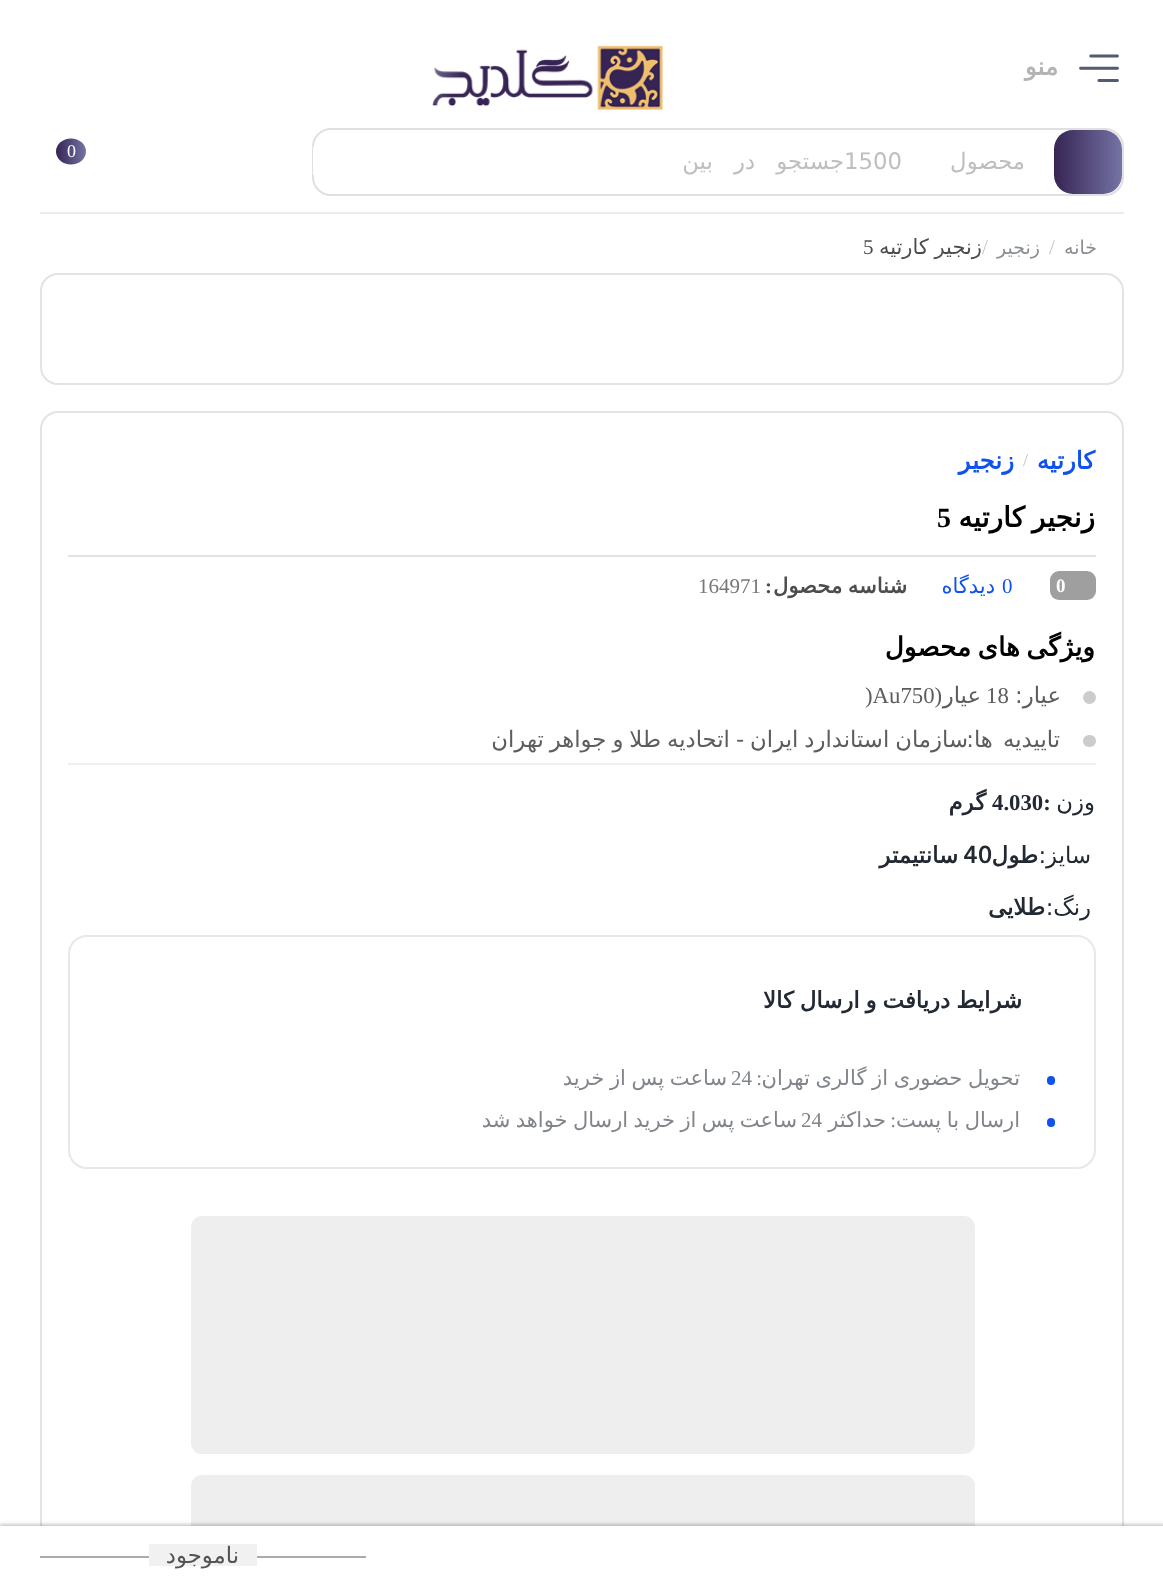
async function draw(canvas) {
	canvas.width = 1163;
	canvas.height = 1583;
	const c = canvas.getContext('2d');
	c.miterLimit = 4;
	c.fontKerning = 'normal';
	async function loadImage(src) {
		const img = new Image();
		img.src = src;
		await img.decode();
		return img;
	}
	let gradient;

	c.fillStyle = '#fff';
	c.fillRect(0, 0, 1163, 1583);
	c.drawImage(await loadImage('img1.png'), 1079, 54, 40, 28);
	c.direction = 'rtl';
	c.font = 'bold 24.5px DejaVu Sans';
	c.fillStyle = '#b4b4b4';
	c.fillText('منو', 1058, 75);
	c.drawImage(await loadImage('img2.png'), 432, 45, 231, 65);
	c.fillStyle = '#ebebef';
	c.fillRect(40, 212, 1084, 2);
	c.beginPath();
	c.roundRect(313, 129, 810, 66, 18);
	c.strokeStyle = '#e0e0e0';
	c.lineWidth = 2;
	c.stroke();
	gradient = c.createLinearGradient(1054, 162, 1122, 162);
	gradient.addColorStop(0, '#362454');
	gradient.addColorStop(1, '#7474a5');
	c.fillStyle = gradient;
	c.beginPath();
	c.roundRect(1054, 130, 68, 64, 19);
	c.fill();
	c.fillStyle = '#fff';
	c.fillRect(313, 147, 1, 28);
	c.font = '22.75px DejaVu Sans';
	c.fillStyle = '#bebebe';
	c.fillText('محصول', 1025, 169);
	c.direction = 'ltr';
	c.fillText('1500', 844, 169);
	c.wordSpacing = '14px';
	c.direction = 'rtl';
	c.fillText('جستجو در بین', 844, 169);
	gradient = c.createLinearGradient(56, 151, 86, 151);
	gradient.addColorStop(0, '#362454');
	gradient.addColorStop(1, '#7474a5');
	c.fillStyle = gradient;
	c.beginPath();
	c.ellipse(71, 151.5, 15, 13, 0, 0, 2 * Math.PI);
	c.fill();
	c.wordSpacing = '0px';
	c.direction = 'ltr';
	c.font = '18px Liberation Serif';
	c.fillStyle = '#fff';
	c.fillText('0', 67, 157);
	c.direction = 'rtl';
	c.font = '19px DejaVu Sans';
	c.fillStyle = '#898d92';
	c.fillText('خانه', 1097, 254);
	c.direction = 'ltr';
	c.font = '21px Liberation Serif';
	c.fillStyle = '#c8c4c4';
	c.fillText('/', 1049, 254);
	c.direction = 'rtl';
	c.font = '19px DejaVu Sans';
	c.fillStyle = '#898d92';
	c.fillText('زنجیر', 1040, 254);
	c.direction = 'ltr';
	c.font = '21px Liberation Serif';
	c.fillStyle = '#c8c4c4';
	c.fillText('/', 982, 254);
	c.wordSpacing = '-1px';
	c.direction = 'rtl';
	c.font = '21px DejaVu Sans';
	c.fillStyle = '#4d4d4d';
	c.fillText('زنجیر کارتیه', 982, 254);
	c.wordSpacing = '0px';
	c.direction = 'ltr';
	c.font = '21px Liberation Serif';
	c.fillText('5', 863, 254);
	c.beginPath();
	c.roundRect(41, 274, 1082, 110, 17);
	c.strokeStyle = '#e3e3e3';
	c.stroke();
	c.beginPath();
	c.roundRect(41, 412, 1082, 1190, 17);
	c.stroke();
	c.direction = 'rtl';
	c.font = 'bold 24.5px DejaVu Sans';
	c.fillStyle = '#1051ef';
	c.fillText('کارتیه', 1095, 469);
	c.direction = 'ltr';
	c.font = '18px Liberation Serif';
	c.fillStyle = '#c0c2c5';
	c.fillText('/', 1023, 466);
	c.direction = 'rtl';
	c.font = 'bold 24.5px DejaVu Sans';
	c.fillStyle = '#1051ef';
	c.fillText('زنجیر', 1014, 469);
	c.wordSpacing = '-2px';
	c.font = 'bold 28px DejaVu Sans';
	c.fillStyle = '#000';
	c.fillText('زنجیر کارتیه', 1095, 527);
	c.wordSpacing = '0px';
	c.direction = 'ltr';
	c.font = 'bold 28px Liberation Serif';
	c.fillText('5', 937, 527);
	c.fillStyle = '#e2e2e2';
	c.fillRect(68, 555, 1028, 2);
	c.fillStyle = '#9f9f9f';
	c.beginPath();
	c.roundRect(1050, 571, 46, 29, 9);
	c.fill();
	c.font = 'bold 19px Liberation Serif';
	c.fillStyle = '#fff';
	c.fillText('0', 1056, 592);
	c.font = '21px Liberation Serif';
	c.fillStyle = '#1051ef';
	c.fillText('0', 1002, 593);
	c.direction = 'rtl';
	c.font = '21px DejaVu Sans';
	c.fillText('دیدگاه', 995, 593);
	c.wordSpacing = '-1px';
	c.font = 'bold 21px DejaVu Sans';
	c.fillStyle = '#4d4d4d';
	c.fillText('شناسه محصول', 907, 593);
	c.wordSpacing = '0px';
	c.font = 'bold 21px Liberation Serif';
	c.fillText(':', 772, 593);
	c.direction = 'ltr';
	c.font = '21px Liberation Serif';
	c.fillStyle = '#777';
	c.fillText('164971', 698, 593);
	c.fillStyle = '#f0f0f1';
	c.fillRect(68, 763, 1028, 2);
	c.wordSpacing = '-2px';
	c.direction = 'rtl';
	c.font = 'bold 26.25px DejaVu Sans';
	c.fillStyle = '#000';
	c.fillText('ویژگی های محصول', 1095, 656);
	c.fillStyle = '#ccc';
	c.beginPath();
	c.arc(1089.5, 697.5, 6.5, 0, 2 * Math.PI);
	c.fill();
	c.wordSpacing = '0px';
	c.font = '22.75px DejaVu Sans';
	c.fillStyle = '#5d5d5d';
	c.fillText('عیار:', 1061, 703);
	c.direction = 'ltr';
	c.font = '22.75px Liberation Serif';
	c.fillText('18', 986, 703);
	c.direction = 'rtl';
	c.fillText('(', 942, 703);
	c.font = '22.75px DejaVu Sans';
	c.fillText('عیار', 981, 703);
	c.direction = 'ltr';
	c.font = '22.75px Liberation Serif';
	c.fillText(')Au750', 865, 703);
	c.fillStyle = '#ccc';
	c.beginPath();
	c.roundRect(1083, 735, 13, 12, 6);
	c.fill();
	c.wordSpacing = '3px';
	c.direction = 'rtl';
	c.font = '22.75px DejaVu Sans';
	c.fillStyle = '#5d5d5d';
	c.fillText('تاییدیه ها:', 1060, 747);
	c.wordSpacing = '-1.25px';
	c.fillText('سازمان استاندارد ایران - اتحادیه طلا و جواهر تهران', 968, 747);
	c.wordSpacing = '0px';
	c.fillStyle = '#232933';
	c.fillText('وزن', 1095, 810);
	c.direction = 'ltr';
	c.font = 'bold 22.75px Liberation Serif';
	c.fillText('4.030:', 992, 810);
	c.direction = 'rtl';
	c.font = 'bold 22.75px DejaVu Sans';
	c.fillText('گرم', 986, 810);
	c.font = '22.75px DejaVu Sans';
	c.fillText('سایز:', 1091, 863);
	c.font = 'bold 22.75px DejaVu Sans';
	c.fillText('طول', 1038, 863);
	c.direction = 'ltr';
	c.fillText('40', 963, 863);
	c.direction = 'rtl';
	c.fillText('سانتیمتر', 958, 863);
	c.font = '22.75px DejaVu Sans';
	c.fillText('رنگ:', 1091, 915);
	c.font = 'bold 22.75px DejaVu Sans';
	c.fillText('طلایی', 1045, 915);
	c.beginPath();
	c.roundRect(69, 936, 1026, 232, 18);
	c.strokeStyle = '#e8e8e8';
	c.stroke();
	c.wordSpacing = '-1.25px';
	c.fillText('شرایط دریافت و ارسال کالا', 1022, 1008);
	c.fillStyle = '#1051ef';
	c.beginPath();
	c.roundRect(1047, 1076, 8, 9, 4);
	c.fill();
	c.wordSpacing = '-1px';
	c.font = '21px DejaVu Sans';
	c.fillStyle = '#81858b';
	c.fillText('تحویل حضوری از گالری تهران', 1020, 1085);
	c.wordSpacing = '0px';
	c.font = '21px Liberation Serif';
	c.fillText(':', 762, 1085);
	c.direction = 'ltr';
	c.fillText('24', 731, 1085);
	c.wordSpacing = '-1px';
	c.direction = 'rtl';
	c.font = '21px DejaVu Sans';
	c.fillText('ساعت پس از خرید', 727, 1085);
	c.fillStyle = '#1051ef';
	c.beginPath();
	c.roundRect(1047, 1118, 8, 9, 4);
	c.fill();
	c.fillStyle = '#81858b';
	c.fillText('ارسال با پست', 1020, 1127);
	c.wordSpacing = '0px';
	c.font = '21px Liberation Serif';
	c.fillText(':', 896, 1127);
	c.font = '21px DejaVu Sans';
	c.fillText('حداکثر', 886, 1127);
	c.wordSpacing = '-1.25px';
	c.fillText('ساعت پس از خرید ارسال خواهد شد', 797, 1127);
	c.wordSpacing = '0px';
	c.direction = 'ltr';
	c.font = '21px Liberation Serif';
	c.fillText('24', 801, 1127);
	gradient = c.createLinearGradient(-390, 1307, 1010, 1307);
	gradient.addColorStop(0.08, '#eee');
	gradient.addColorStop(0.18, '#ddd');
	gradient.addColorStop(0.33, '#eee');
	c.fillStyle = gradient;
	c.beginPath();
	c.roundRect(191, 1216, 784, 238, 11);
	c.fill();
	gradient = c.createLinearGradient(-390, 1566, 1010, 1566);
	gradient.addColorStop(0.08, '#eee');
	gradient.addColorStop(0.18, '#ddd');
	gradient.addColorStop(0.33, '#eee');
	c.fillStyle = gradient;
	c.beginPath();
	c.roundRect(191, 1475, 784, 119, 11);
	c.fill();
	c.fillStyle = '#0000000d';
	c.filter = 'blur(2px)';
	c.beginPath();
	c.rect(0, 1523, 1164, 57);
	c.fill();
	c.filter = 'none';
	c.fillStyle = '#00000024';
	c.filter = 'blur(1px)';
	c.beginPath();
	c.rect(0, 1524, 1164, 58);
	c.fill();
	c.filter = 'none';
	for (const [x, y, w, h, color] of [
		[0, 1526, 1163, 57, '#fff'],
		[40, 1556, 326, 2, '#ababab'],
		[149, 1544, 108, 22, '#f1f1f1'],
	]) {
		c.fillStyle = color;
		c.fillRect(x, y, w, h);
	}
	c.direction = 'rtl';
	c.font = '22.75px DejaVu Sans';
	c.fillStyle = '#535353';
	c.fillText('ناموجود', 239, 1563);
}

draw(document.querySelector('canvas'));
